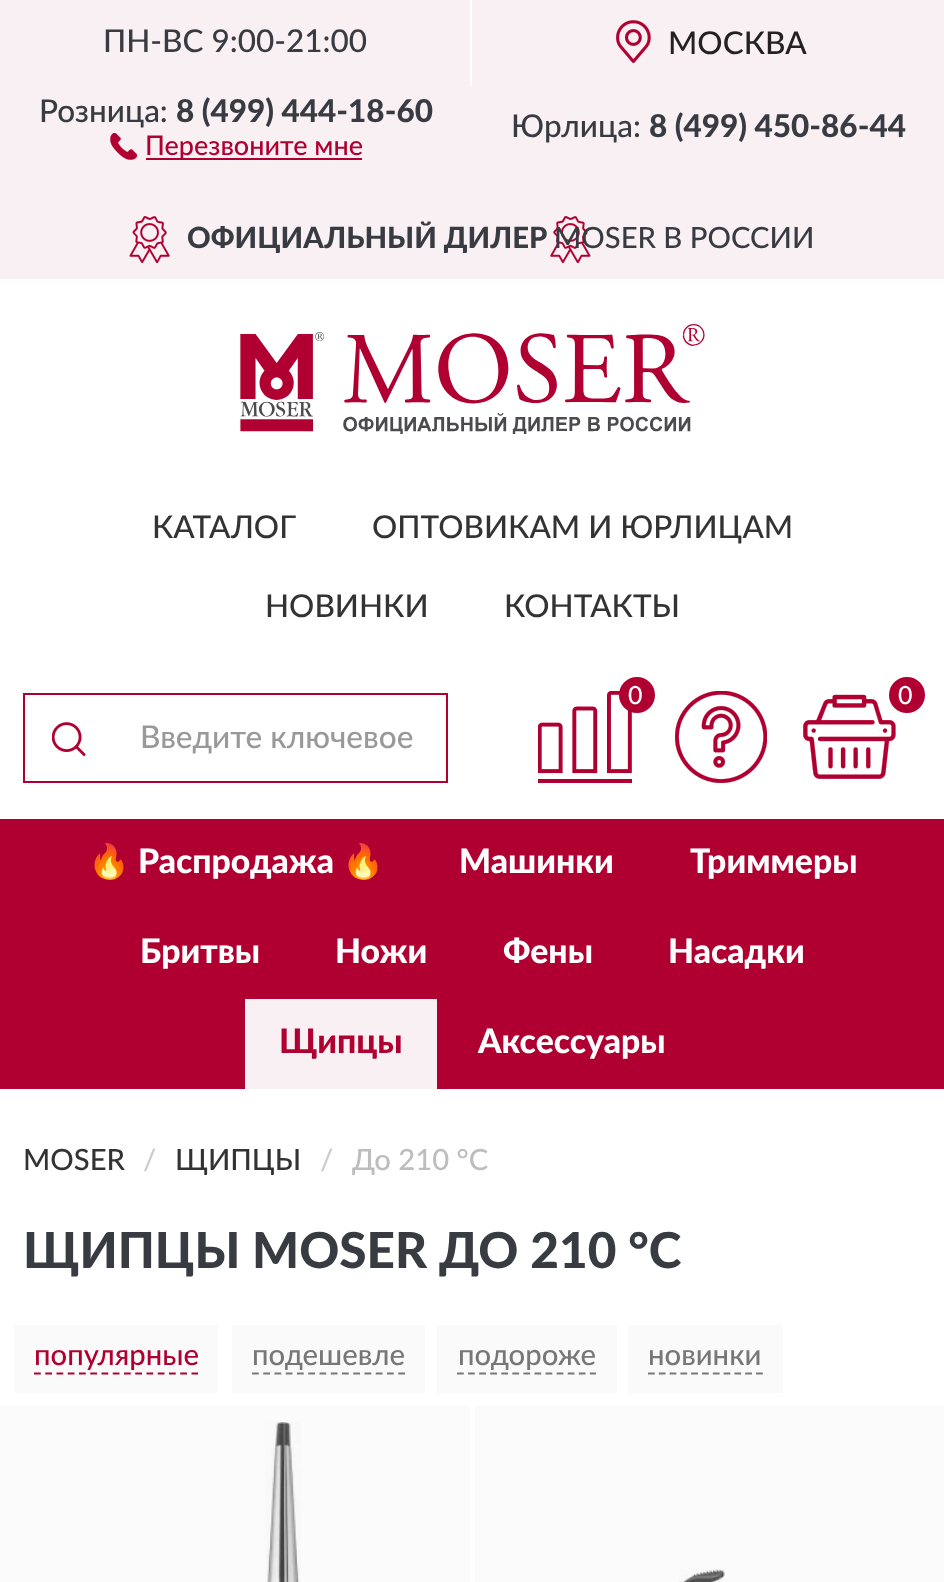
async function draw(canvas) {
	canvas.width = 944;
	canvas.height = 1582;
	const c = canvas.getContext('2d');
	c.miterLimit = 4;
	c.fontKerning = 'normal';
	async function loadImage(src) {
		const img = new Image();
		img.src = src;
		await img.decode();
		return img;
	}

	c.fillStyle = '#fff';
	c.fillRect(0, 0, 944, 1582);
	c.fillStyle = '#f9f0f3';
	c.fillRect(0, 0, 944, 279);
	c.fillStyle = '#fff';
	c.fillRect(470, 0, 2, 86);
	c.font = '500 31.5px Lato';
	c.fillStyle = '#393b42';
	c.fillText('ПН-ВС 9:00-21:00', 103, 52);
	c.drawImage(await loadImage('img1.png'), 616, 20, 35, 43);
	c.fillStyle = '#222';
	c.fillText('МОСКВА', 668, 54);
	c.fillStyle = '#393b42';
	c.fillText('Розница:', 39, 122);
	c.font = '900 31.5px Lato';
	c.fillText('8 (499) 444-18-60', 176, 122);
	c.drawImage(await loadImage('img2.png'), 110, 133, 27, 27);
	c.fillStyle = '#b00032';
	c.fillRect(146, 158, 216, 2);
	c.font = '500 27px Lato';
	c.fillText('Перезвоните мне', 145, 155);
	c.font = '500 31.5px Lato';
	c.fillStyle = '#393b42';
	c.fillText('Юрлица:', 511, 137);
	c.font = '900 31.5px Lato';
	c.fillText('8 (499) 450-86-44', 649, 137);
	c.drawImage(await loadImage('img3.png'), 129, 216, 462, 47);
	c.font = '900 29.25px Lato';
	c.fillText('ОФИЦИАЛЬНЫЙ ДИЛЕР', 187, 248);
	c.font = '500 29.25px Lato';
	c.fillText('MOSER В РОССИИ', 554, 248);
	c.drawImage(await loadImage('img4.png'), 240, 324, 465, 110);
	c.font = '500 31.5px Lato';
	c.fillStyle = '#333';
	for (const [text, x, y] of [
		['КАТАЛОГ', 152, 538],
		['ОПТОВИКАМ И ЮРЛИЦАМ', 372, 538],
		['НОВИНКИ', 265, 617],
		['КОНТАКТЫ', 504, 617],
	]) {
		c.fillText(text, x, y);
	}
	c.drawImage(await loadImage('img5.png'), 538, 691, 94, 92);
	c.fillStyle = '#b00032';
	c.beginPath();
	c.arc(637, 695, 18, 0, 2 * Math.PI);
	c.fill();
	c.font = '500 25px Lato';
	c.fillStyle = '#fff';
	c.fillText('0', 628, 704);
	c.drawImage(await loadImage('img6.png'), 675, 691, 92, 92);
	c.drawImage(await loadImage('img7.png'), 803, 694, 93, 85);
	c.fillStyle = '#b00032';
	c.beginPath();
	c.arc(907, 695, 18, 0, 2 * Math.PI);
	c.fill();
	c.fillStyle = '#fff';
	c.fillText('0', 898, 704);
	c.drawImage(await loadImage('img8.png'), 52, 722, 34, 34);
	for (const [x, y, w, h, color] of [
		[23, 693, 425, 2, '#b00032'],
		[23, 781, 90, 2, '#b00032'],
		[23, 693, 2, 90, '#b00032'],
		[446, 693, 2, 90, '#b00032'],
		[113, 781, 335, 2, '#b00032'],
	]) {
		c.fillStyle = color;
		c.fillRect(x, y, w, h);
	}
	c.font = '500 31.5px Lato';
	c.fillStyle = '#999';
	c.fillText('Введите ключевое', 140, 748);
	c.fillStyle = '#b00032';
	c.fillRect(0, 819, 944, 270);
	c.font = '33.75px Noto Color Emoji';
	c.fillStyle = '#fff';
	c.fillText('🔥', 88, 873);
	c.font = '900 33.75px Lato';
	c.fillText('Распродажа', 138, 873);
	c.font = '33.75px Noto Color Emoji';
	c.fillText('🔥', 342, 873);
	c.font = '900 33.75px Lato';
	for (const [text, x, y] of [
		['Машинки', 459, 873],
		['Триммеры', 690, 873],
		['Бритвы', 140, 963],
		['Ножи', 335, 963],
		['Фены', 503, 963],
		['Насадки', 668, 963],
	]) {
		c.fillText(text, x, y);
	}
	c.fillStyle = '#f9f0f3';
	c.fillRect(245, 999, 192, 90);
	c.fillStyle = '#b00032';
	c.fillText('Щипцы', 279, 1053);
	c.fillStyle = '#fff';
	c.fillText('Аксессуары', 478, 1053);
	c.font = '500 29.25px Lato';
	c.fillStyle = '#333';
	c.fillText('MOSER', 23, 1170);
	c.fillStyle = '#ccc';
	c.fillText('/', 143, 1170);
	c.fillStyle = '#333';
	c.fillText('ЩИПЦЫ', 175, 1170);
	c.fillStyle = '#ccc';
	c.fillText('/', 320, 1170);
	c.fillStyle = '#bdbdbd';
	c.fillText('До 210 °C', 352, 1170);
	c.font = '900 49.5px Lato';
	c.fillStyle = '#393b42';
	c.fillText('ЩИПЦЫ MOSER ДО 210 °C', 23, 1268);
	c.fillStyle = '#fafafa';
	c.fillRect(14, 1325, 204, 68);
	c.font = '500 29.25px Lato';
	c.fillStyle = '#b00032';
	c.fillText('популярные', 34, 1365);
	c.beginPath();
	c.moveTo(34, 1373.5);
	c.lineTo(198, 1373.5);
	c.strokeStyle = '#b00032';
	c.lineWidth = 2.2;
	c.setLineDash([6.75, 4.5]);
	c.stroke();
	c.fillStyle = '#fafafa';
	c.fillRect(232, 1325, 193, 68);
	c.fillStyle = '#777';
	c.fillText('подешевле', 252, 1365);
	c.beginPath();
	c.moveTo(252, 1373.5);
	c.lineTo(405, 1373.5);
	c.strokeStyle = '#777';
	c.stroke();
	c.fillStyle = '#fafafa';
	c.fillRect(437, 1325, 180, 68);
	c.fillStyle = '#777';
	c.fillText('подороже', 458, 1365);
	c.beginPath();
	c.moveTo(457, 1373.5);
	c.lineTo(596, 1373.5);
	c.setLineDash([6.75, 4.32]);
	c.stroke();
	c.fillStyle = '#fafafa';
	c.fillRect(628, 1325, 155, 68);
	c.fillStyle = '#777';
	c.fillText('новинки', 648, 1365);
	c.beginPath();
	c.moveTo(648, 1373.5);
	c.lineTo(763, 1373.5);
	c.setLineDash([6.75, 4.05]);
	c.stroke();
	c.fillStyle = '#fbfbfb';
	c.fillRect(0, 1406, 470, 176);
	c.drawImage(await loadImage('img9.png'), 265, 1422, 36, 160);
	c.fillRect(475, 1406, 469, 176);
	c.drawImage(await loadImage('img10.png'), 679, 1569, 46, 13);
}

draw(document.querySelector('canvas'));
